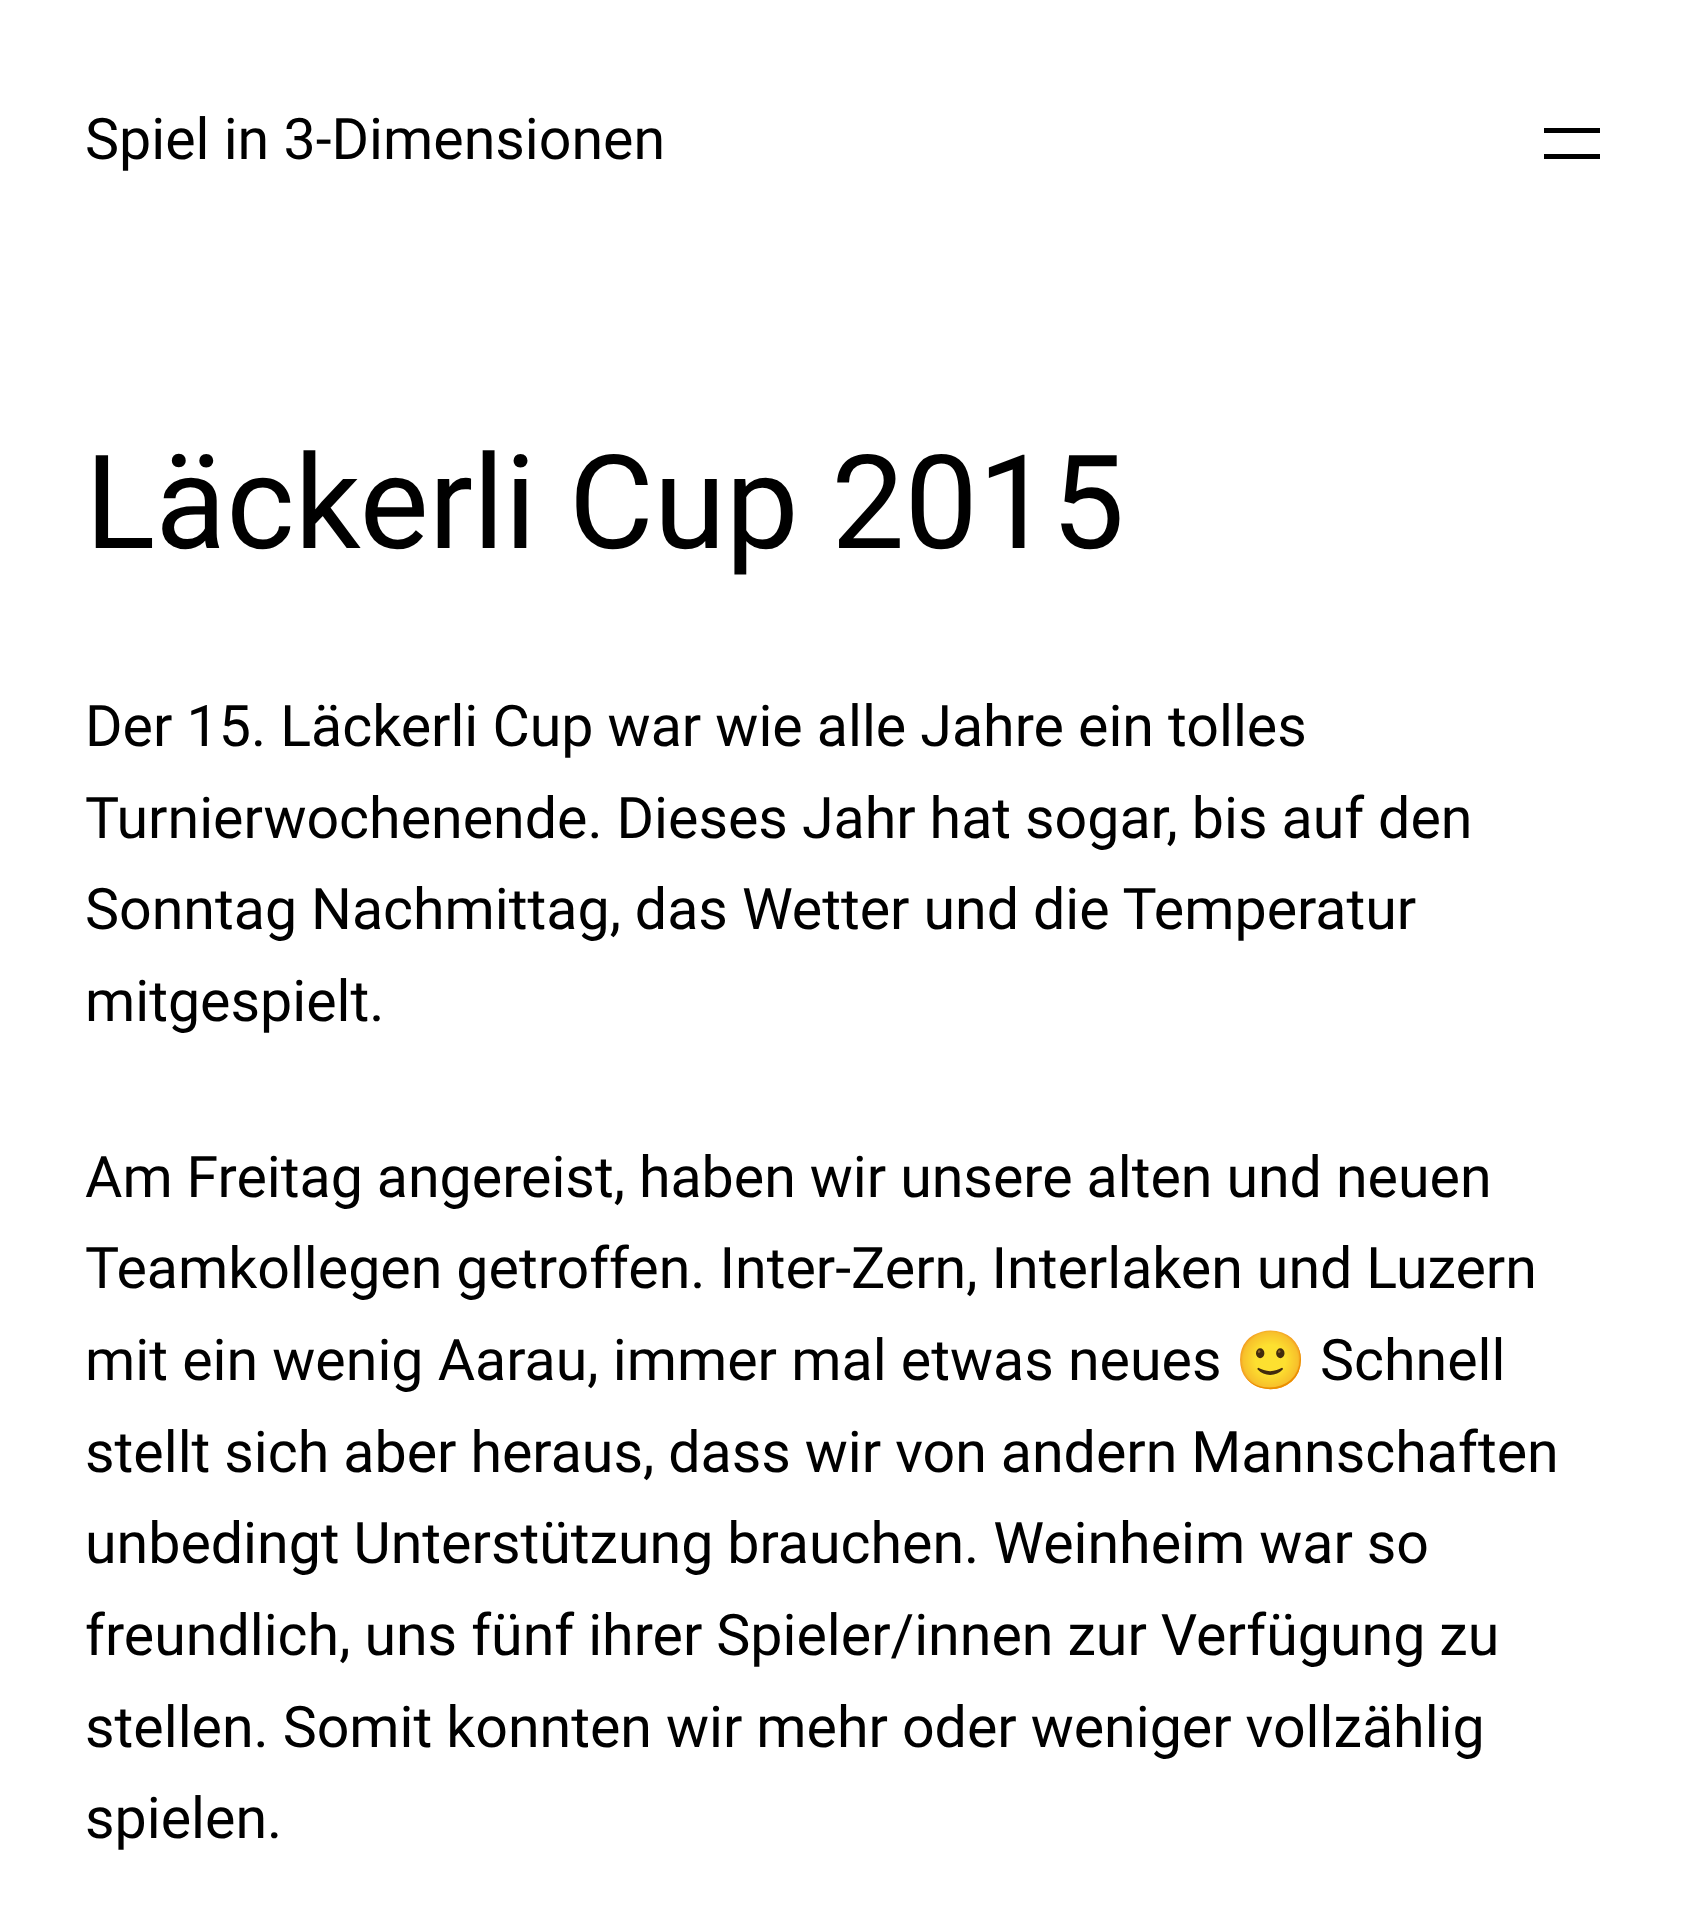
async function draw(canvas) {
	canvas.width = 1696;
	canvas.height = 1932;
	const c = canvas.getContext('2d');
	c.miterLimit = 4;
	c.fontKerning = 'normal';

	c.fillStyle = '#fff';
	c.fillRect(0, 0, 1696, 1932);
	c.font = '57.3px Roboto';
	c.fillStyle = '#000';
	c.fillText('Spiel in 3-Dimensionen', 85, 159);
	c.fillRect(1544, 128, 56, 5);
	c.fillRect(1544, 154, 56, 5);
	c.font = '130.5px Roboto';
	c.fillText('Läckerli Cup 2015', 85, 548);
	c.wordSpacing = '-0.1px';
	c.font = '57.3px Roboto';
	c.fillText('Der 15. Läckerli Cup war wie alle Jahre ein tolles', 85, 746);
	c.wordSpacing = '-0.25px';
	c.fillText('Turnierwochenende. Dieses Jahr hat sogar, bis auf den', 85, 838);
	c.fillText('Sonntag Nachmittag, das Wetter und die Temperatur', 85, 929);
	c.wordSpacing = '0px';
	c.fillText('mitgespielt.', 85, 1021);
	c.wordSpacing = '-0.25px';
	c.fillText('Am Freitag angereist, haben wir unsere alten und neuen', 85, 1197);
	c.fillText('Teamkollegen getroffen. Inter-Zern, Interlaken und Luzern', 85, 1288);
	c.wordSpacing = '0px';
	c.fillText('mit ein wenig Aarau, immer mal etwas neues', 85, 1380);
	c.font = '57.3px Noto Color Emoji';
	c.fillText('🙂', 1235, 1380);
	c.font = '57.3px Roboto';
	c.fillText('Schnell', 1320, 1380);
	c.wordSpacing = '-0.25px';
	for (const [text, x, y] of [
		['stellt sich aber heraus, dass wir von andern Mannschaften', 85, 1472],
		['unbedingt Unterstützung brauchen. Weinheim war so', 85, 1563],
		['freundlich, uns fünf ihrer Spieler/innen zur Verfügung zu', 85, 1655],
		['stellen. Somit konnten wir mehr oder weniger vollzählig', 85, 1747],
	]) {
		c.fillText(text, x, y);
	}
	c.wordSpacing = '0px';
	c.fillText('spielen.', 85, 1838);
}

draw(document.querySelector('canvas'));
